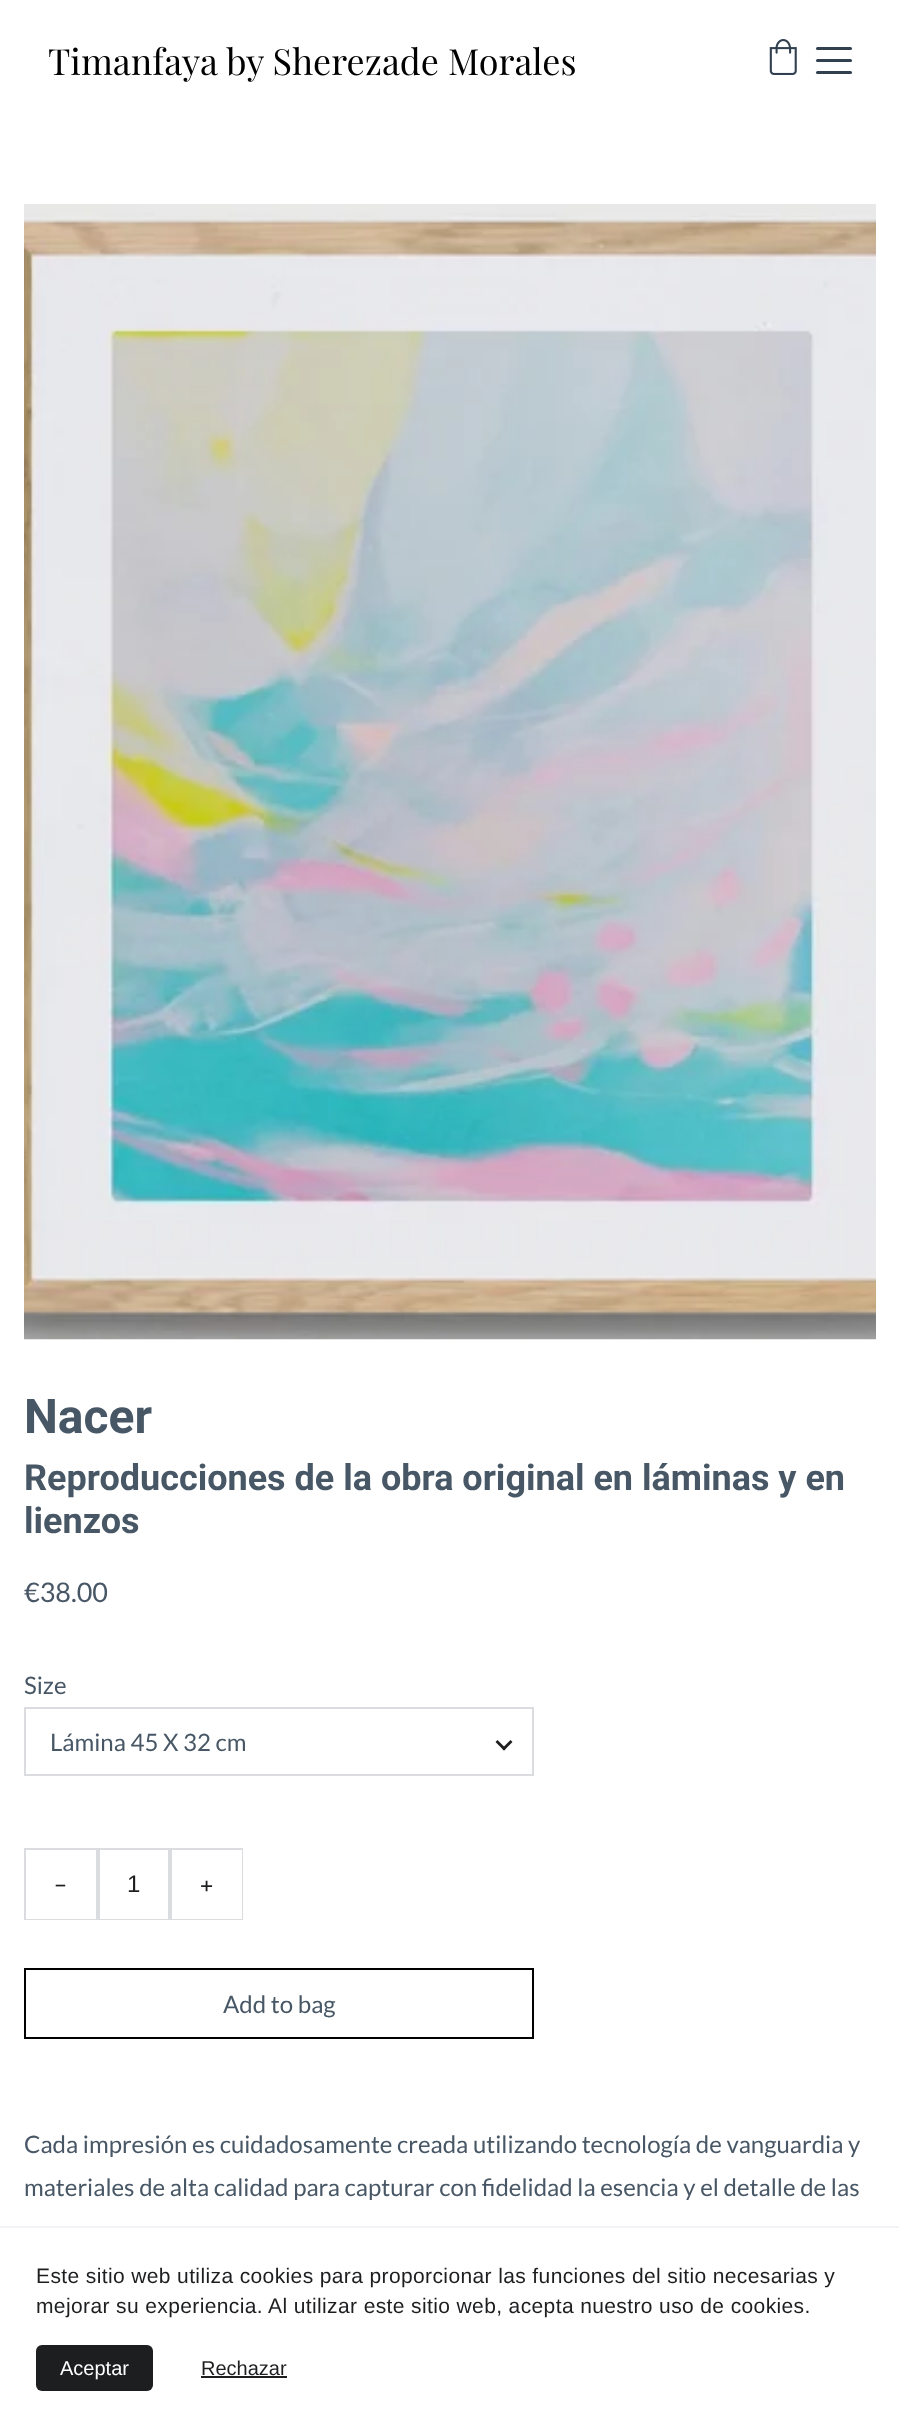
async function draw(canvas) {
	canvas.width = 899;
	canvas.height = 2424;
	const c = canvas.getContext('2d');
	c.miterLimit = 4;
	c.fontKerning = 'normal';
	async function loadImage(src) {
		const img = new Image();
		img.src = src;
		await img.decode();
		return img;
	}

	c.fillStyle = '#fff';
	c.fillRect(0, 0, 899, 2424);
	c.font = '36px Playfair Display';
	c.fillStyle = '#000';
	c.fillText('Timanfaya by Sherezade Morales', 48, 75);
	c.drawImage(await loadImage('img1.png'), 769, 39, 28, 36);
	c.fillStyle = '#31404f';
	c.beginPath();
	c.roundRect(816, 47, 36, 3, 1.5);
	c.fill();
	c.beginPath();
	c.roundRect(816, 59, 36, 3, 1.5);
	c.fill();
	c.beginPath();
	c.roundRect(816, 71, 36, 3, 1.5);
	c.fill();
	c.drawImage(await loadImage('img2.png'), 24, 204, 852, 1136);
	c.font = 'bold 48px Roboto';
	c.fillStyle = '#485766';
	c.fillText('Nacer', 24, 1433);
	c.font = 'bold 36px Roboto';
	c.fillText('Reproducciones de la obra original en láminas y en', 24, 1490);
	c.fillText('lienzos', 24, 1533);
	c.font = '27px Lato';
	c.fillText('€38.00', 24, 1602);
	c.font = '24px Lato';
	c.fillText('Size', 24, 1694);
	c.strokeStyle = '#dadce0';
	c.lineWidth = 2;
	c.strokeRect(25, 1708, 508, 67);
	c.fillText('Lámina 45 X 32 cm', 50, 1751);
	c.fillStyle = '#1d1e20';
	c.beginPath();
	c.moveTo(512.5, 1742);
	c.lineTo(504, 1750.5);
	c.lineTo(502, 1748.5);
	c.lineTo(510.5, 1740);
	c.closePath();
	c.fill();
	c.beginPath();
	c.moveTo(506, 1748.5);
	c.lineTo(504, 1750.5);
	c.lineTo(495.5, 1742);
	c.lineTo(497.5, 1740);
	c.closePath();
	c.fill();
	c.strokeRect(25, 1849, 217, 70);
	c.fillStyle = '#fff';
	c.fillRect(26, 1918, 70, 1);
	c.fillStyle = '#dadce0';
	c.fillRect(96, 1850, 4, 69);
	c.font = '24px DM Sans';
	c.fillStyle = '#1d1e20';
	c.fillText('-', 54, 1893);
	c.fillStyle = '#fff';
	c.fillRect(100, 1918, 68, 1);
	c.fillStyle = '#dadce0';
	c.fillRect(168, 1850, 4, 69);
	c.font = '24px Liberation Sans';
	c.fillStyle = '#1d1e20';
	c.fillText('1', 127, 1892);
	c.fillStyle = '#fff';
	c.fillRect(172, 1850, 70, 69);
	c.font = '24px DM Sans';
	c.fillStyle = '#1d1e20';
	c.fillText('+', 200, 1893);
	c.strokeStyle = '#000';
	c.strokeRect(25, 1969, 508, 69);
	c.font = '24px Lato';
	c.fillStyle = '#485766';
	for (const [text, x, y] of [
		['Add to bag', 223, 2013],
		['Cada impresión es cuidadosamente creada utilizando tecnología de vanguardia y', 24, 2153],
		['materiales de alta calidad para capturar con fidelidad la esencia y el detalle de las', 24, 2196],
	]) {
		c.fillText(text, x, y);
	}
	c.fillStyle = '#f2f3f6';
	c.fillRect(0, 2226, 899, 2);
	c.letterSpacing = '0.38px';
	c.font = '21px Liberation Sans';
	c.fillStyle = '#1d1e20';
	c.fillText('Este sitio web utiliza cookies para proporcionar las funciones del sitio necesarias y', 36, 2283);
	c.fillText('mejorar su experiencia. Al utilizar este sitio web, acepta nuestro uso de cookies.', 36, 2313);
	c.beginPath();
	c.roundRect(36, 2345, 117, 46, 6);
	c.fill();
	c.letterSpacing = '0px';
	c.font = '20px Liberation Sans';
	c.fillStyle = '#fff';
	c.fillText('Aceptar', 60, 2375);
	c.fillStyle = '#1d1e20';
	c.fillText('Rechazar', 201, 2375);
	c.fillRect(201, 2376, 86, 2);
}

draw(document.querySelector('canvas'));
